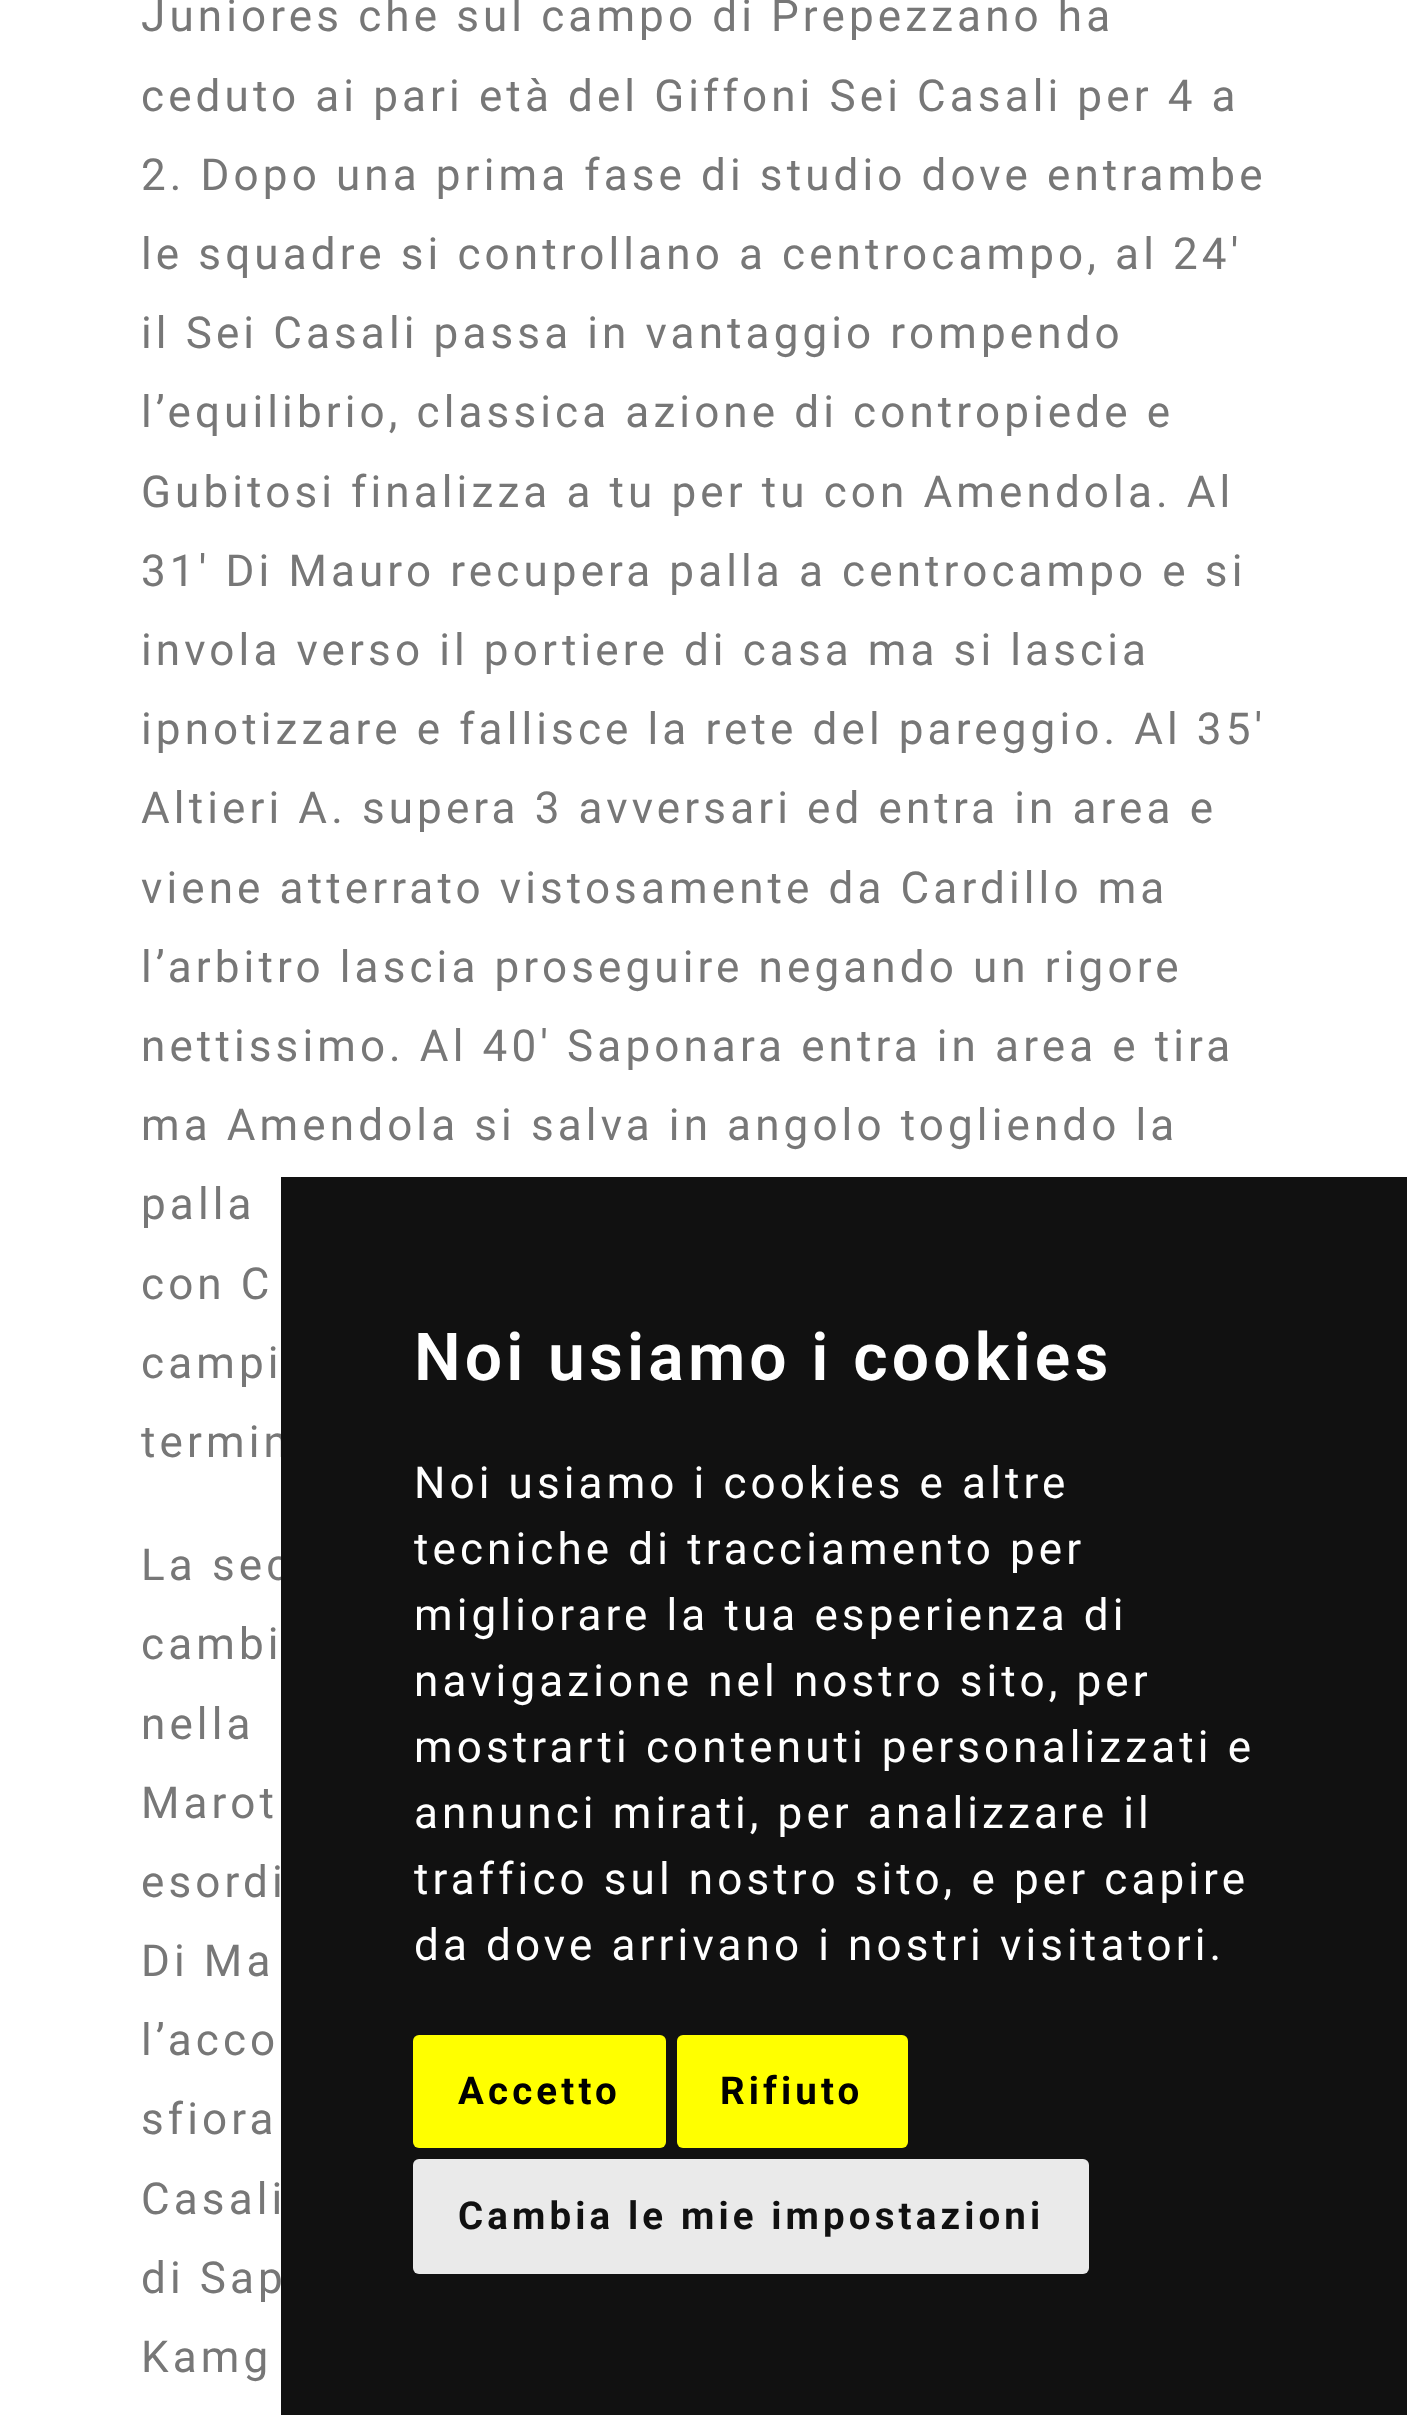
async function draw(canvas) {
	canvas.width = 1407;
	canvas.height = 2415;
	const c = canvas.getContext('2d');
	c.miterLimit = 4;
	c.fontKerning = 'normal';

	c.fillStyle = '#fff';
	c.fillRect(0, 0, 1407, 2415);
	c.letterSpacing = '4.12px';
	c.font = '44px Roboto';
	c.fillStyle = '#777';
	for (const [text, x, y] of [
		['Juniores che sul campo di Prepezzano ha', 141, 31],
		['ceduto ai pari età del Giffoni Sei Casali per 4 a', 141, 111],
		['2. Dopo una prima fase di studio dove entrambe', 141, 190],
		['le squadre si controllano a centrocampo, al 24′', 141, 269],
		['il Sei Casali passa in vantaggio rompendo', 141, 348],
		['l’equilibrio, classica azione di contropiede e', 141, 427],
		['Gubitosi finalizza a tu per tu con Amendola. Al', 141, 507],
		['31′ Di Mauro recupera palla a centrocampo e si', 141, 586],
		['invola verso il portiere di casa ma si lascia', 141, 665],
		['ipnotizzare e fallisce la rete del pareggio. Al 35′', 141, 744],
		['Altieri A. supera 3 avversari ed entra in area e', 141, 823],
		['viene atterrato vistosamente da Cardillo ma', 141, 903],
		['l’arbitro lascia proseguire negando un rigore', 141, 982],
		['nettissimo. Al 40′ Saponara entra in area e tira', 141, 1061],
		['ma Amendola si salva in angolo togliendo la', 141, 1140],
		['palla', 141, 1219],
		['con C', 141, 1299],
		['campi', 141, 1378],
		['termin', 141, 1457],
		['La sec', 141, 1580],
		['cambi', 141, 1659],
		['nella', 141, 1739],
		['Marot', 141, 1818],
		['esordi', 141, 1897],
		['Di Ma', 141, 1976],
		['l’acco', 141, 2055],
		['sfiora', 141, 2134],
		['Casali', 141, 2214],
		['di Sap', 141, 2293],
		['Kamg', 141, 2372],
	]) {
		c.fillText(text, x, y);
	}
	c.fillStyle = '#111';
	c.fillRect(281, 1177, 1126, 1238);
	c.font = '600 66px Roboto';
	c.fillStyle = '#fff';
	c.fillText('Noi usiamo i cookies', 414, 1380);
	c.font = '44px Roboto';
	for (const [text, x, y] of [
		['Noi usiamo i cookies e altre', 414, 1498],
		['tecniche di tracciamento per', 414, 1564],
		['migliorare la tua esperienza di', 414, 1630],
		['navigazione nel nostro sito, per', 414, 1696],
		['mostrarti contenuti personalizzati e', 414, 1762],
		['annunci mirati, per analizzare il', 414, 1828],
		['traffico sul nostro sito, e per capire', 414, 1894],
		['da dove arrivano i nostri visitatori.', 414, 1960],
	]) {
		c.fillText(text, x, y);
	}
	c.fillStyle = '#ff0';
	c.beginPath();
	c.roundRect(413, 2035, 253, 113, 6);
	c.fill();
	c.font = 'bold 38.5px Roboto';
	c.fillStyle = '#000';
	c.fillText('Accetto', 458, 2104);
	c.fillStyle = '#ff0';
	c.beginPath();
	c.roundRect(677, 2035, 231, 113, 6);
	c.fill();
	c.fillStyle = '#000';
	c.fillText('Rifiuto', 720, 2104);
	c.fillStyle = '#eaeaea';
	c.beginPath();
	c.roundRect(413, 2159, 676, 115, 6);
	c.fill();
	c.fillStyle = '#111';
	c.fillText('Cambia le mie impostazioni', 458, 2229);
}

draw(document.querySelector('canvas'));
